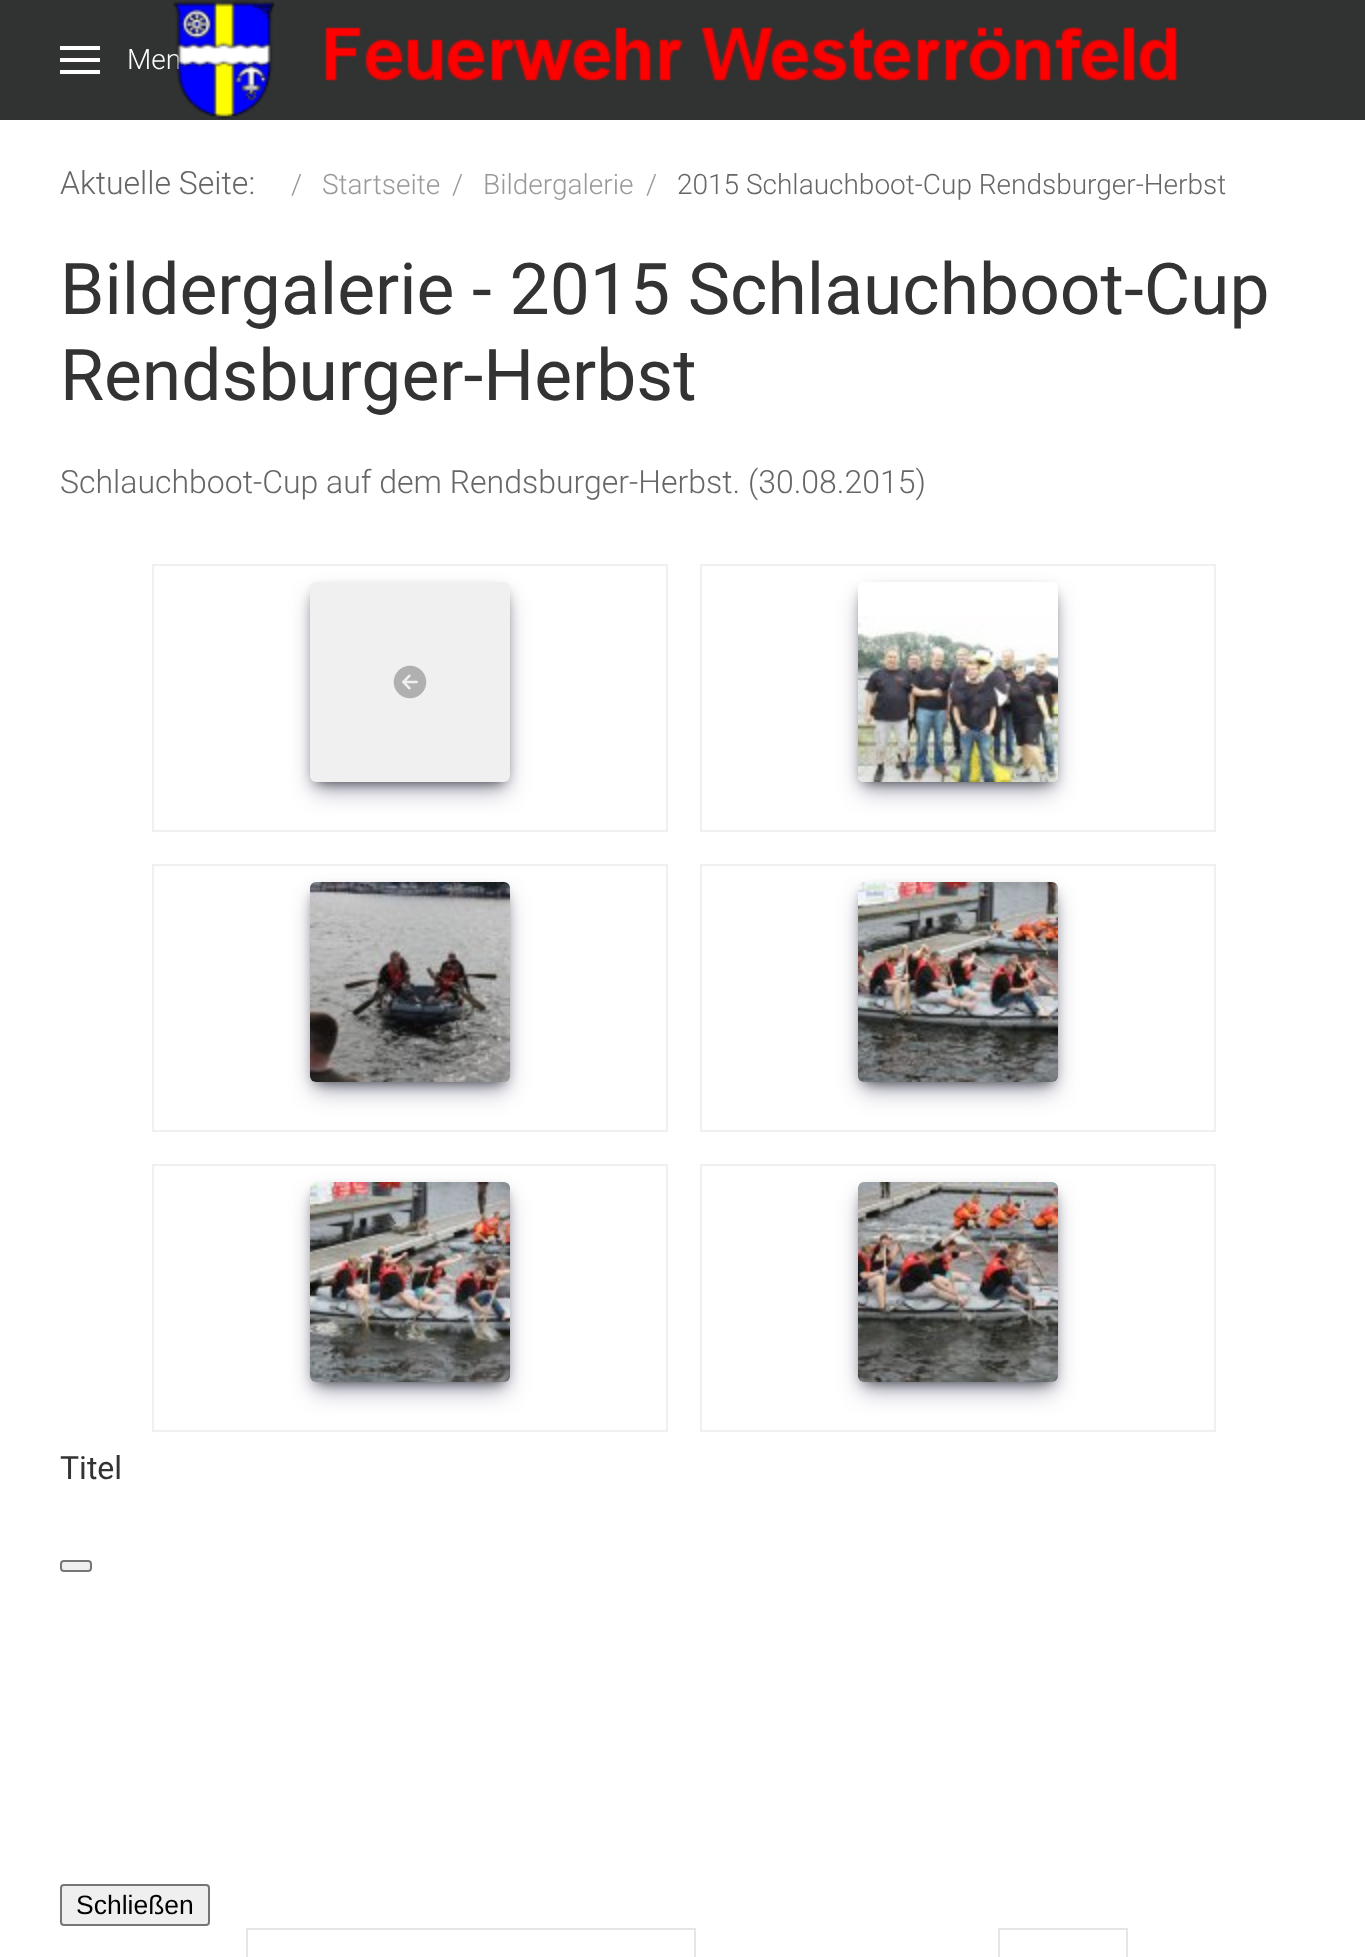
async function draw(canvas) {
	canvas.width = 1365;
	canvas.height = 1957;
	const c = canvas.getContext('2d');
	c.miterLimit = 4;
	c.fontKerning = 'normal';
	async function loadImage(src) {
		const img = new Image();
		img.src = src;
		await img.decode();
		return img;
	}

	c.fillStyle = '#fff';
	c.fillRect(0, 0, 1365, 1957);
	for (const [x, y, w, h, color] of [
		[0, 0, 1365, 120, '#313232'],
		[60, 46, 40, 4, '#fff'],
		[60, 58, 40, 4, '#fff'],
		[60, 70, 40, 4, '#fff'],
	]) {
		c.fillStyle = color;
		c.fillRect(x, y, w, h);
	}
	c.font = '300 28px Roboto';
	c.fillText('Men', 127, 69);
	c.drawImage(await loadImage('img1.png'), 173, 0, 1004, 119);
	c.font = '300 32px Roboto';
	c.fillStyle = '#666';
	c.fillText('Aktuelle Seite:', 60, 194);
	c.font = '300 28px Roboto';
	c.fillStyle = '#999';
	for (const [text, x, y] of [
		['/', 291, 194],
		['Startseite', 322, 194],
		['/', 452, 194],
		['Bildergalerie', 483, 194],
		['/', 646, 194],
	]) {
		c.fillText(text, x, y);
	}
	c.fillStyle = '#666';
	c.fillText('2015 Schlauchboot-Cup Rendsburger-Herbst', 677, 194);
	c.font = '71.4px Roboto';
	c.fillStyle = '#333';
	c.fillText('Bildergalerie - 2015 Schlauchboot-Cup', 60, 314);
	c.fillText('Rendsburger-Herbst', 60, 400);
	c.font = '300 32px Roboto';
	c.fillStyle = '#666';
	c.fillText('Schlauchboot-Cup auf dem Rendsburger-Herbst. (30.08.2015)', 60, 493);
	c.strokeStyle = '#f0f0f0';
	c.lineWidth = 2;
	c.strokeRect(153, 565, 514, 266);
	c.fillStyle = '#32325d66';
	c.filter = 'blur(12px)';
	c.beginPath();
	c.roundRect(314, 598, 192, 192, 2);
	c.fill();
	c.filter = 'none';
	c.fillStyle = '#000000b3';
	c.filter = 'blur(7px)';
	c.beginPath();
	c.rect(316, 594, 188, 188);
	c.fill();
	c.filter = 'none';
	c.fillStyle = '#f0f0f0';
	c.beginPath();
	c.roundRect(310, 582, 200, 200, 6);
	c.fill();
	c.drawImage(await loadImage('img2.png'), 393, 665, 34, 34);
	c.strokeRect(701, 565, 514, 266);
	c.save();
	c.beginPath();
	c.moveTo(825, 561);
	c.lineTo(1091, 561);
	c.lineTo(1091, 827);
	c.lineTo(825, 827);
	c.closePath();
	c.moveTo(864, 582);
	c.lineTo(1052, 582);
	c.bezierCurveTo(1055.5, 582, 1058, 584.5, 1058, 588);
	c.lineTo(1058, 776);
	c.bezierCurveTo(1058, 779.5, 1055.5, 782, 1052, 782);
	c.lineTo(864, 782);
	c.bezierCurveTo(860.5, 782, 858, 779.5, 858, 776);
	c.lineTo(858, 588);
	c.bezierCurveTo(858, 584.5, 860.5, 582, 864, 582);
	c.closePath();
	c.clip('evenodd');
	c.fillStyle = '#32325d66';
	c.filter = 'blur(12px)';
	c.beginPath();
	c.roundRect(862, 598, 192, 192, 2);
	c.fill();
	c.filter = 'none';
	c.restore();
	c.save();
	c.beginPath();
	c.moveTo(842, 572);
	c.lineTo(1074, 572);
	c.lineTo(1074, 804);
	c.lineTo(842, 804);
	c.closePath();
	c.moveTo(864, 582);
	c.lineTo(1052, 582);
	c.bezierCurveTo(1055.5, 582, 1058, 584.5, 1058, 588);
	c.lineTo(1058, 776);
	c.bezierCurveTo(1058, 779.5, 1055.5, 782, 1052, 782);
	c.lineTo(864, 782);
	c.bezierCurveTo(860.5, 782, 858, 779.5, 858, 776);
	c.lineTo(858, 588);
	c.bezierCurveTo(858, 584.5, 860.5, 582, 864, 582);
	c.closePath();
	c.clip('evenodd');
	c.fillStyle = '#000000b3';
	c.filter = 'blur(7px)';
	c.beginPath();
	c.rect(864, 594, 188, 188);
	c.fill();
	c.filter = 'none';
	c.restore();
	c.drawImage(await loadImage('img3.png'), 858, 616, 200, 166);
	c.strokeRect(153, 865, 514, 266);
	c.fillStyle = '#32325d66';
	c.filter = 'blur(12px)';
	c.beginPath();
	c.roundRect(314, 898, 192, 192, 2);
	c.fill();
	c.filter = 'none';
	c.fillStyle = '#000000b3';
	c.filter = 'blur(7px)';
	c.beginPath();
	c.rect(316, 894, 188, 188);
	c.fill();
	c.filter = 'none';
	c.drawImage(await loadImage('img4.png'), 310, 882, 200, 200);
	c.strokeRect(701, 865, 514, 266);
	c.fillStyle = '#32325d66';
	c.filter = 'blur(12px)';
	c.beginPath();
	c.roundRect(862, 898, 192, 192, 2);
	c.fill();
	c.filter = 'none';
	c.fillStyle = '#000000b3';
	c.filter = 'blur(7px)';
	c.beginPath();
	c.rect(864, 894, 188, 188);
	c.fill();
	c.filter = 'none';
	c.drawImage(await loadImage('img5.png'), 858, 882, 200, 200);
	c.strokeRect(153, 1165, 514, 266);
	c.fillStyle = '#32325d66';
	c.filter = 'blur(12px)';
	c.beginPath();
	c.roundRect(314, 1198, 192, 192, 2);
	c.fill();
	c.filter = 'none';
	c.fillStyle = '#000000b3';
	c.filter = 'blur(7px)';
	c.beginPath();
	c.rect(316, 1194, 188, 188);
	c.fill();
	c.filter = 'none';
	c.drawImage(await loadImage('img6.png'), 310, 1182, 200, 200);
	c.strokeRect(701, 1165, 514, 266);
	c.fillStyle = '#32325d66';
	c.filter = 'blur(12px)';
	c.beginPath();
	c.roundRect(862, 1198, 192, 192, 2);
	c.fill();
	c.filter = 'none';
	c.fillStyle = '#000000b3';
	c.filter = 'blur(7px)';
	c.beginPath();
	c.rect(864, 1194, 188, 188);
	c.fill();
	c.filter = 'none';
	c.drawImage(await loadImage('img7.png'), 858, 1182, 200, 200);
	c.font = '32px Roboto';
	c.fillStyle = '#333';
	c.fillText('Titel', 60, 1479);
	c.fillStyle = '#efefef';
	c.beginPath();
	c.roundRect(61, 1561, 30, 10, 3);
	c.fill();
	c.strokeStyle = '#767676';
	c.stroke();
	c.beginPath();
	c.roundRect(61, 1885, 148, 40, 3);
	c.fill();
	c.stroke();
	c.font = '26.5px Liberation Sans';
	c.fillStyle = '#000';
	c.fillText('Schließen', 76, 1914);
	c.strokeStyle = '#e5e5e5';
	c.strokeRect(247, 1929, 448, 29);
	c.strokeRect(999, 1929, 128, 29);
}

draw(document.querySelector('canvas'));
